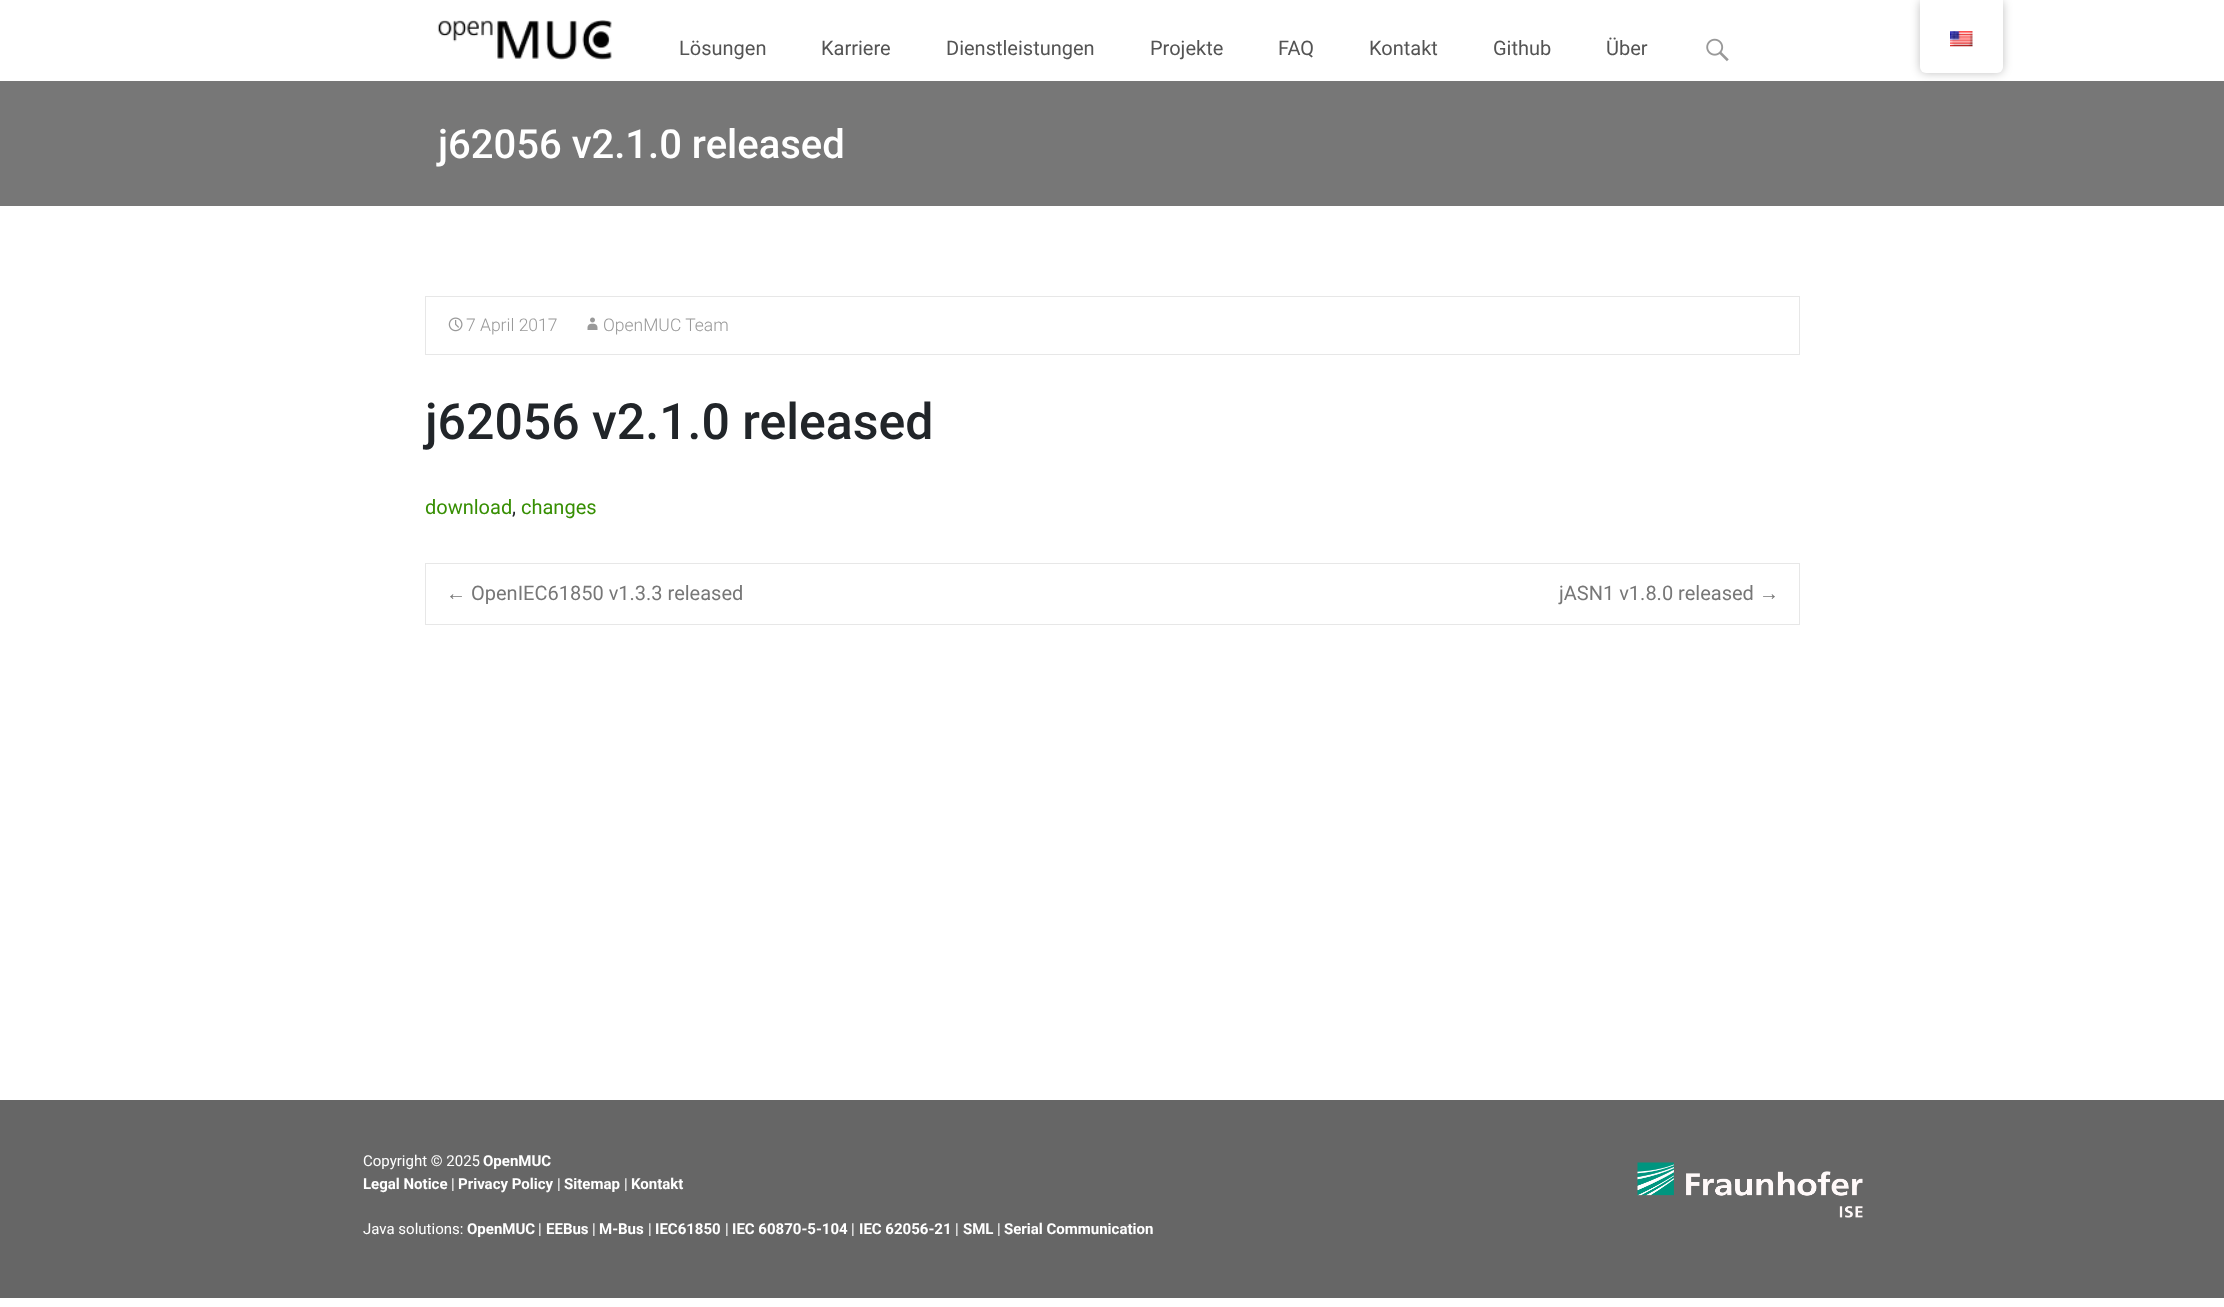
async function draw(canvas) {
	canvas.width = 2224;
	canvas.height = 1307;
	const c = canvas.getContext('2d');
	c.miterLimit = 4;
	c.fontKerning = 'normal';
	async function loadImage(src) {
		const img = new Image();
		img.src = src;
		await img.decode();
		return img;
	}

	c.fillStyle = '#fff';
	c.fillRect(0, 0, 2224, 1307);
	c.drawImage(await loadImage('img1.png'), 437, 20, 175, 40);
	c.font = '20px Roboto';
	c.fillStyle = '#545454';
	for (const [text, x, y] of [
		['Lösungen', 679, 55],
		['Karriere', 821, 55],
		['Dienstleistungen', 946, 55],
		['Projekte', 1150, 55],
		['FAQ', 1278, 55],
		['Kontakt', 1369, 55],
		['Github', 1493, 55],
		['Über', 1606, 55],
	]) {
		c.fillText(text, x, y);
	}
	c.drawImage(await loadImage('img2.png'), 1706, 38, 23, 24);
	c.fillStyle = '#777';
	c.fillRect(0, 81, 2224, 125);
	c.font = '500 40px Roboto';
	c.fillStyle = '#fff';
	c.fillText('j62056 v2.1.0 released', 438, 158);
	c.strokeStyle = '#e7e7e7';
	c.strokeRect(425.5, 296.5, 1374, 58);
	c.drawImage(await loadImage('img3.png'), 448, 317, 15, 15);
	c.font = '300 17.5px Roboto';
	c.fillStyle = '#999';
	c.fillText('7 April 2017', 466, 331);
	c.drawImage(await loadImage('img4.png'), 587, 317, 11, 13);
	c.fillText('OpenMUC Team', 603, 331);
	c.font = '500 50px Roboto';
	c.fillStyle = '#212529';
	c.fillText('j62056 v2.1.0 released', 425, 439);
	c.font = '20px Roboto';
	c.fillStyle = '#378f03';
	c.fillText('download', 425, 514);
	c.fillStyle = '#212529';
	c.fillText(',', 512, 514);
	c.fillStyle = '#378f03';
	c.fillText('changes', 521, 514);
	c.strokeRect(425.5, 563.5, 1374, 61);
	c.font = '20px Liberation Sans';
	c.fillStyle = '#777';
	c.fillText('←', 446, 600);
	c.font = '20px Roboto';
	c.fillText('OpenIEC61850 v1.3.3 released', 471, 600);
	c.fillText('jASN1 v1.8.0 released', 1559, 600);
	c.font = '20px Liberation Sans';
	c.fillText('→', 1759, 600);
	c.fillStyle = '#666';
	c.fillRect(0, 1100, 2224, 198);
	c.font = '15px Roboto';
	c.fillStyle = '#fff';
	c.fillText('Copyright © 2025', 363, 1166);
	c.font = 'bold 15px Roboto';
	c.fillText('OpenMUC', 483, 1166);
	c.fillText('Legal Notice', 363, 1189);
	c.font = '15px Roboto';
	c.fillText('|', 451, 1189);
	c.font = 'bold 15px Roboto';
	c.fillText('Privacy Policy', 458, 1189);
	c.font = '15px Roboto';
	c.fillText('|', 557, 1189);
	c.font = 'bold 15px Roboto';
	c.fillText('Sitemap', 564, 1189);
	c.font = '15px Roboto';
	c.fillText('|', 624, 1189);
	c.font = 'bold 15px Roboto';
	c.fillText('Kontakt', 631, 1189);
	c.font = '15px Roboto';
	c.fillText('Java solutions:', 363, 1234);
	c.font = 'bold 15px Roboto';
	c.fillText('OpenMUC', 467, 1234);
	c.font = '15px Roboto';
	c.fillText('|', 538, 1234);
	c.font = 'bold 15px Roboto';
	c.fillText('EEBus', 546, 1234);
	c.font = '15px Roboto';
	c.fillText('|', 592, 1234);
	c.font = 'bold 15px Roboto';
	c.fillText('M-Bus', 599, 1234);
	c.font = '15px Roboto';
	c.fillText('|', 648, 1234);
	c.font = 'bold 15px Roboto';
	c.fillText('IEC61850', 655, 1234);
	c.font = '15px Roboto';
	c.fillText('|', 725, 1234);
	c.font = 'bold 15px Roboto';
	c.fillText('IEC 60870-5-104', 732, 1234);
	c.font = '15px Roboto';
	c.fillText('|', 851, 1234);
	c.font = 'bold 15px Roboto';
	c.fillText('IEC 62056-21', 859, 1234);
	c.font = '15px Roboto';
	c.fillText('|', 955, 1234);
	c.font = 'bold 15px Roboto';
	c.fillText('SML', 963, 1234);
	c.font = '15px Roboto';
	c.fillText('|', 997, 1234);
	c.font = 'bold 15px Roboto';
	c.fillText('Serial Communication', 1004, 1234);
	c.drawImage(await loadImage('img5.png'), 1637, 1162, 226, 56);
	c.fillStyle = '#00000040';
	c.filter = 'blur(5px)';
	c.beginPath();
	c.roundRect(1920, 0, 83, 73, 6);
	c.fill();
	c.filter = 'none';
	c.fillStyle = '#fff';
	c.beginPath();
	c.roundRect(1920, 0, 83, 73, [0, 0, 6, 6]);
	c.fill();
	c.drawImage(await loadImage('img6.png'), 1950, 31, 23, 16);
}

draw(document.querySelector('canvas'));
